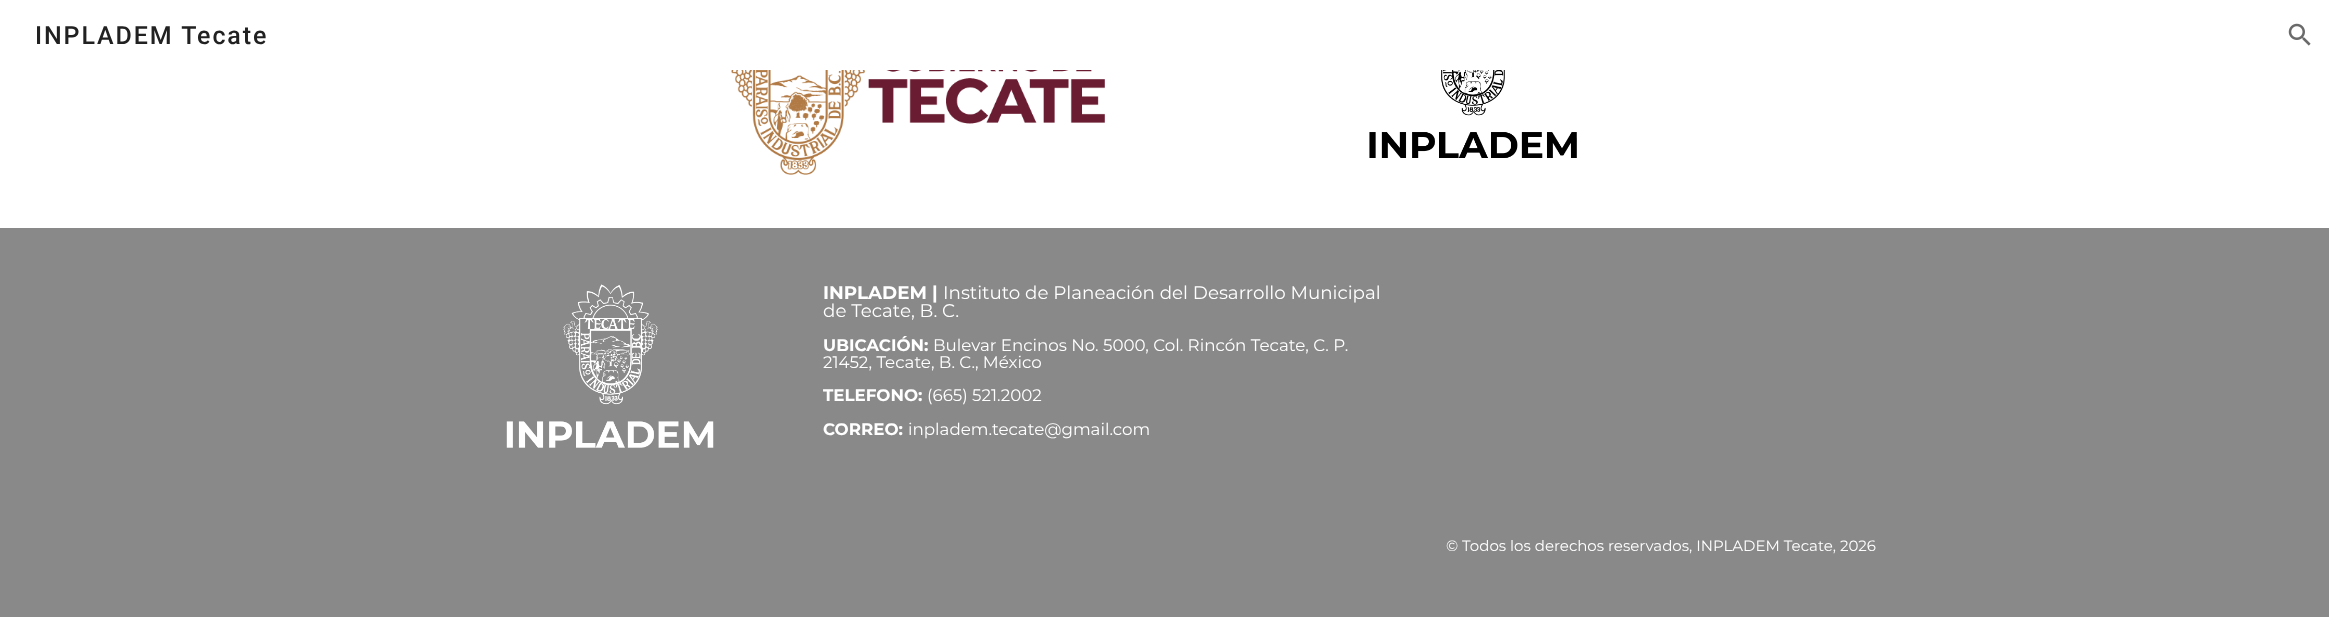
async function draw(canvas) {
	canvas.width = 2329;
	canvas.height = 617;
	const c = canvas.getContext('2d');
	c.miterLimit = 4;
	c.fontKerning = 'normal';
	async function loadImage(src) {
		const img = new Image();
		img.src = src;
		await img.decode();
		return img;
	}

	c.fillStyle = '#fff';
	c.fillRect(0, 0, 2329, 617);
	c.letterSpacing = '1.9px';
	c.font = '500 25px Roboto';
	c.fillStyle = '#212121';
	c.fillText('INPLADEM Tecate', 35, 44);
	c.drawImage(await loadImage('img1.png'), 2288, 23, 23, 23);
	c.drawImage(await loadImage('img2.png'), 731, 70, 374, 105);
	c.drawImage(await loadImage('img3.png'), 1369, 70, 208, 88);
	c.fillStyle = '#898989';
	c.fillRect(0, 228, 2329, 389);
	c.drawImage(await loadImage('img4.png'), 506, 284, 208, 164);
	c.letterSpacing = '0px';
	c.font = 'bold 18.3px Montserrat';
	c.fillStyle = '#fff';
	c.fillText('INPLADEM |', 823, 299);
	c.font = '18.3px Montserrat';
	c.fillText('Instituto de Planeación del Desarrollo Municipal', 943, 299);
	c.fillText('de Tecate, B. C.', 823, 317);
	c.font = 'bold 16.7px Montserrat';
	c.fillText('UBICACIÓN:', 823, 351);
	c.font = '16.7px Montserrat';
	c.fillText('Bulevar Encinos No. 5000, Col. Rincón Tecate, C. P.', 933, 351);
	c.fillText('21452, Tecate, B. C., México', 823, 368);
	c.font = 'bold 16.7px Montserrat';
	c.fillText('TELEFONO:', 823, 401);
	c.font = '16.7px Montserrat';
	c.fillText('(665) 521.2002', 927, 401);
	c.font = 'bold 16.7px Montserrat';
	c.fillText('CORREO:', 823, 435);
	c.font = '16.7px Montserrat';
	c.fillText('inpladem.tecate@gmail.com', 908, 435);
	c.font = '15px Montserrat';
	c.fillText('© Todos los derechos reservados, INPLADEM Tecate, 2026', 1446, 551);
}

draw(document.querySelector('canvas'));
